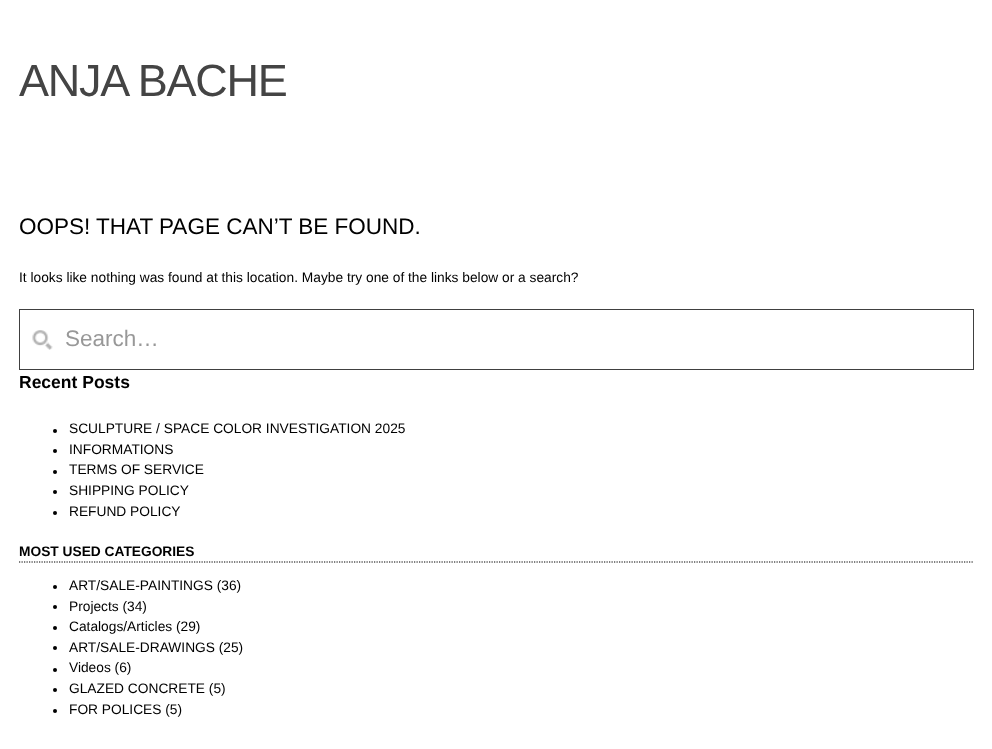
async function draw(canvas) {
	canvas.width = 992;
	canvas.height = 749;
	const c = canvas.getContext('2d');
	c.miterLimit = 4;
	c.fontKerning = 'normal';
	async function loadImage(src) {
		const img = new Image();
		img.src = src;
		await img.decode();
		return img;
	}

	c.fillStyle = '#fff';
	c.fillRect(0, 0, 992, 749);
	c.letterSpacing = '-1.25px';
	c.font = '45px Liberation Sans';
	c.fillStyle = '#444';
	c.fillText('ANJA BACHE', 19, 96);
	c.letterSpacing = '0px';
	c.font = '22.5px Liberation Sans';
	c.fillStyle = '#000';
	c.fillText('OOPS! THAT PAGE CAN’T BE FOUND.', 19, 234);
	c.font = '13.75px Liberation Sans';
	c.fillText('It looks like nothing was found at this location. Maybe try one of the links below or a search?', 19, 282);
	c.drawImage(await loadImage('img1.png'), 32, 330, 21, 20);
	c.strokeStyle = '#404040';
	c.strokeRect(19.5, 309.5, 954, 60);
	c.font = '22.5px Liberation Sans';
	c.fillStyle = '#989898';
	c.fillText('Search…', 65, 346);
	c.font = 'bold 17.5px Liberation Sans';
	c.fillStyle = '#000';
	c.fillText('Recent Posts', 19, 388);
	c.beginPath();
	c.arc(55, 431, 2, 0, 2 * Math.PI);
	c.fill();
	c.font = '13.75px Liberation Sans';
	c.fillText('SCULPTURE / SPACE COLOR INVESTIGATION 2025', 69, 433);
	c.beginPath();
	c.arc(55, 451, 2, 0, 2 * Math.PI);
	c.fill();
	c.fillText('INFORMATIONS', 69, 454);
	c.beginPath();
	c.arc(55, 472, 2, 0, 2 * Math.PI);
	c.fill();
	c.fillText('TERMS OF SERVICE', 69, 474);
	c.beginPath();
	c.arc(55, 492, 2, 0, 2 * Math.PI);
	c.fill();
	c.fillText('SHIPPING POLICY', 69, 495);
	c.beginPath();
	c.arc(55, 513, 2, 0, 2 * Math.PI);
	c.fill();
	c.fillText('REFUND POLICY', 69, 516);
	c.beginPath();
	c.moveTo(19, 562);
	c.lineTo(974, 562);
	c.strokeStyle = '#000';
	c.lineWidth = 1.2;
	c.setLineDash([1.25, 1.25]);
	c.stroke();
	c.font = 'bold 13.75px Liberation Sans';
	c.fillText('MOST USED CATEGORIES', 19, 556);
	c.beginPath();
	c.arc(55, 587, 2, 0, 2 * Math.PI);
	c.fill();
	c.font = '13.75px Liberation Sans';
	c.fillText('ART/SALE-PAINTINGS (36)', 69, 590);
	c.beginPath();
	c.arc(55, 607, 2, 0, 2 * Math.PI);
	c.fill();
	c.fillText('Projects (34)', 69, 611);
	c.beginPath();
	c.arc(55, 628, 2, 0, 2 * Math.PI);
	c.fill();
	c.fillText('Catalogs/Articles (29)', 69, 631);
	c.beginPath();
	c.arc(55, 648, 2, 0, 2 * Math.PI);
	c.fill();
	c.fillText('ART/SALE-DRAWINGS (25)', 69, 652);
	c.beginPath();
	c.arc(55, 670, 2, 0, 2 * Math.PI);
	c.fill();
	c.fillText('Videos (6)', 69, 672);
	c.beginPath();
	c.arc(55, 690, 2, 0, 2 * Math.PI);
	c.fill();
	c.fillText('GLAZED CONCRETE (5)', 69, 693);
	c.beginPath();
	c.arc(55, 711, 2, 0, 2 * Math.PI);
	c.fill();
	c.fillText('FOR POLICES (5)', 69, 714);
}

draw(document.querySelector('canvas'));
